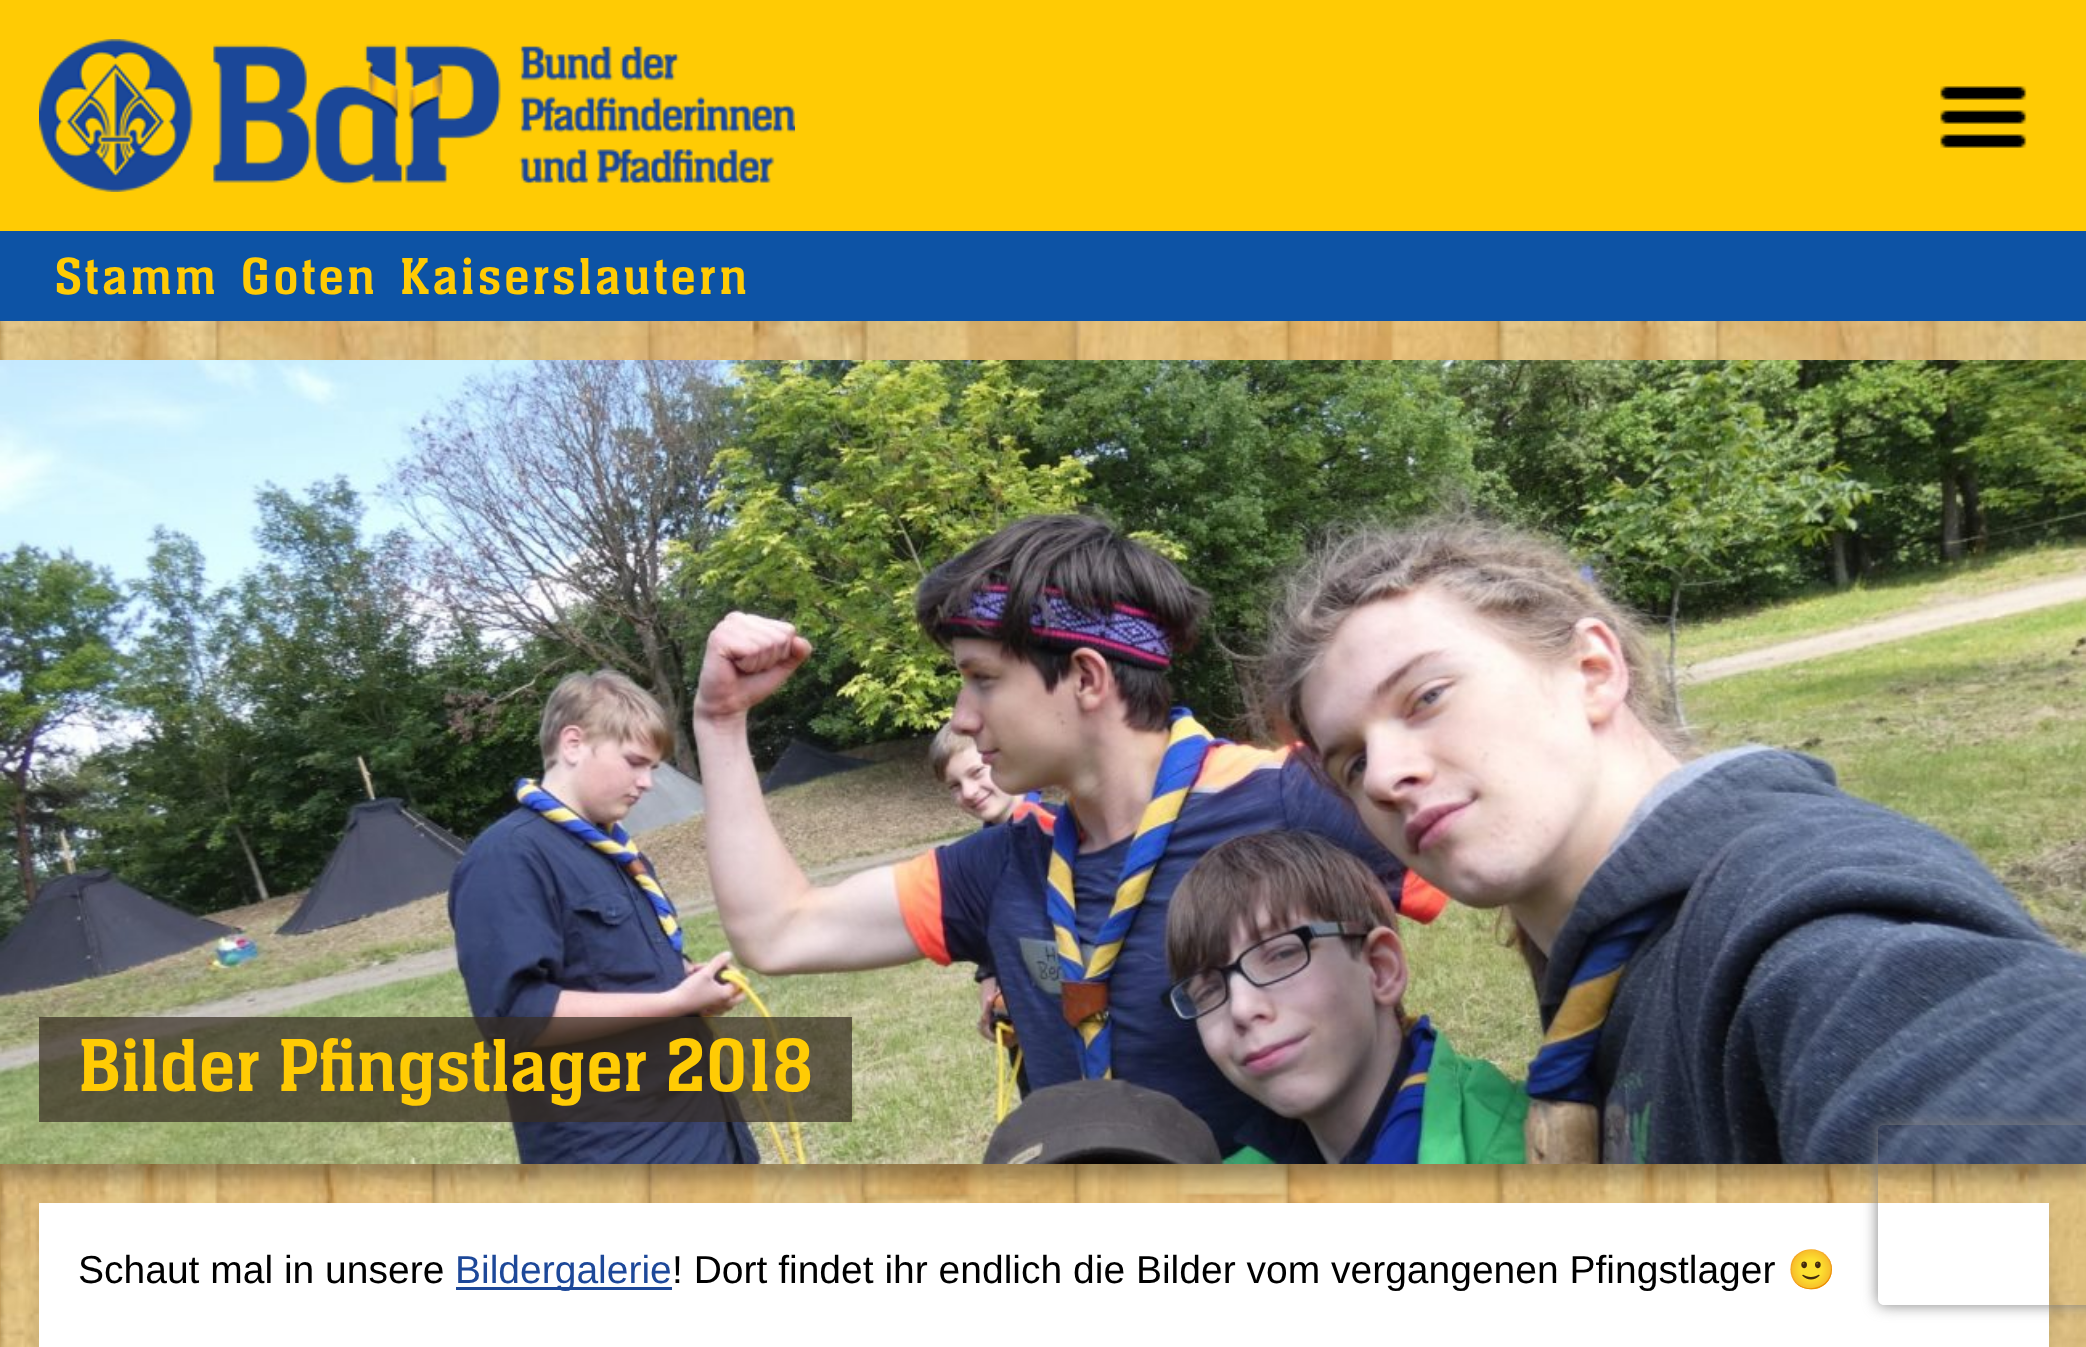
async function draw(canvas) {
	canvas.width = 2086;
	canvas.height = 1347;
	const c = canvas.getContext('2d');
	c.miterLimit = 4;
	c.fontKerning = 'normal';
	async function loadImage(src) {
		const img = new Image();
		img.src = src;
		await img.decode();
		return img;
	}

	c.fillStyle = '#fff';
	c.fillRect(0, 0, 2086, 1347);
	c.drawImage(await loadImage('img1.png'), 0, 321, 2086, 1026);
	c.fillStyle = '#ffcb04';
	c.fillRect(0, 0, 2086, 231);
	c.drawImage(await loadImage('img2.png'), 1940, 86, 87, 62);
	c.drawImage(await loadImage('img3.png'), 39, 39, 756, 153);
	c.fillStyle = '#0d53a5';
	c.fillRect(0, 231, 2086, 90);
	c.letterSpacing = '3px';
	c.wordSpacing = '6px';
	c.font = '54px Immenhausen';
	c.fillStyle = '#ffcb04';
	c.fillText('Stamm Goten Kaiserslautern', 54, 294);
	c.fillStyle = '#0000004d';
	c.filter = 'blur(7.5px)';
	c.beginPath();
	c.rect(0, 375, 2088, 804);
	c.fill();
	c.filter = 'none';
	c.drawImage(await loadImage('img4.png'), 0, 360, 2086, 804);
	c.fillStyle = '#382e23b3';
	c.fillRect(39, 1017, 813, 105);
	c.letterSpacing = '0px';
	c.wordSpacing = '0px';
	c.font = '78px Immenhausen';
	c.fillStyle = '#ffcb04';
	c.fillText('Bilder Pfingstlager 2018', 78, 1091);
	c.fillStyle = '#0000001a';
	c.filter = 'blur(7.5px)';
	c.beginPath();
	c.rect(39, 1218, 2010, 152);
	c.fill();
	c.filter = 'none';
	c.fillStyle = '#fff';
	c.fillRect(39, 1203, 2010, 144);
	c.font = '39px Liberation Sans';
	c.fillStyle = '#000';
	c.fillText('Schaut mal in unsere', 78, 1283);
	c.fillStyle = '#1d4899';
	c.fillRect(456, 1287, 216, 3);
	c.fillText('Bildergalerie', 455, 1283);
	c.fillStyle = '#000';
	c.fillText('! Dort findet ihr endlich die Bilder vom vergangenen Pfingstlager', 672, 1283);
	c.font = '39px Noto Color Emoji';
	c.fillText('🙂', 1787, 1283);
	c.save();
	c.beginPath();
	c.moveTo(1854, 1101);
	c.lineTo(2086, 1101);
	c.lineTo(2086, 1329);
	c.lineTo(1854, 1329);
	c.closePath();
	c.moveTo(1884, 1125);
	c.lineTo(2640, 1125);
	c.bezierCurveTo(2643.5, 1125, 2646, 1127.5, 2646, 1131);
	c.lineTo(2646, 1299);
	c.bezierCurveTo(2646, 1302.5, 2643.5, 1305, 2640, 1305);
	c.lineTo(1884, 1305);
	c.bezierCurveTo(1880.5, 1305, 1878, 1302.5, 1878, 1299);
	c.lineTo(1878, 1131);
	c.bezierCurveTo(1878, 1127.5, 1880.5, 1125, 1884, 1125);
	c.closePath();
	c.clip('evenodd');
	c.fillStyle = '#808080';
	c.filter = 'blur(7.5px)';
	c.beginPath();
	c.roundRect(1878, 1125, 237, 180, 6);
	c.fill();
	c.filter = 'none';
	c.restore();
}

draw(document.querySelector('canvas'));
